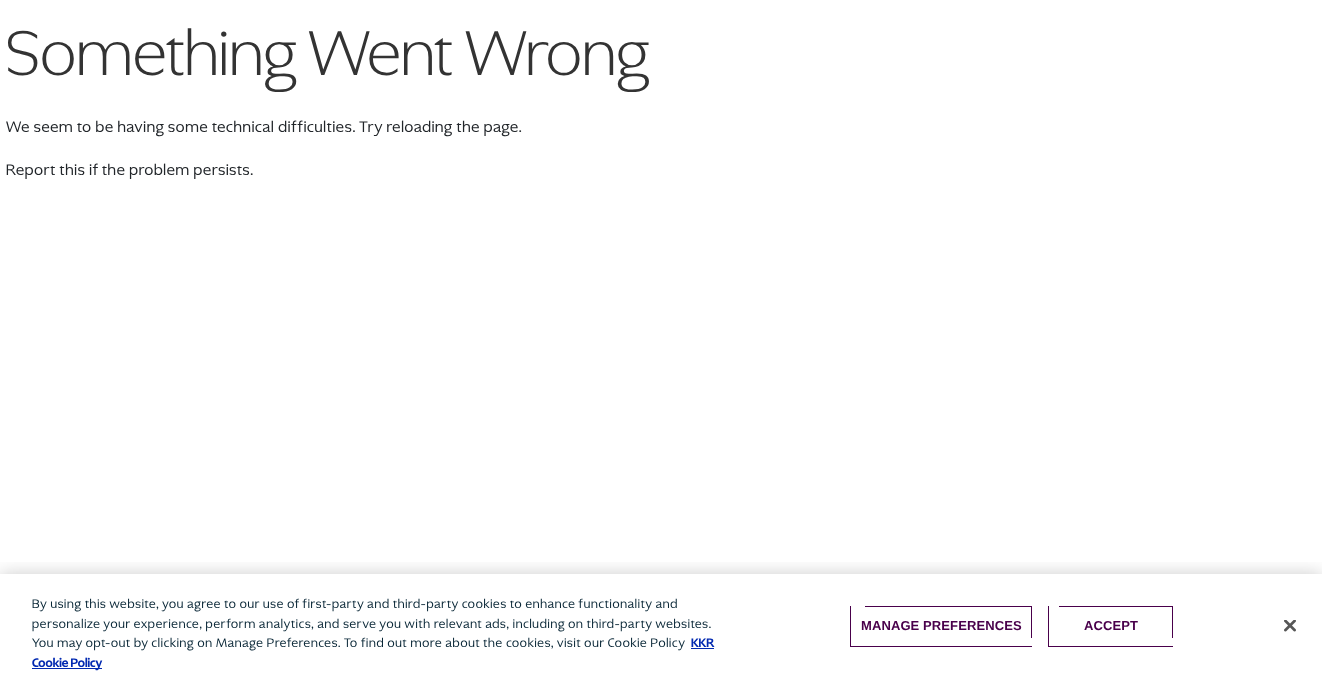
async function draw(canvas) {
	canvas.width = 1322;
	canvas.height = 682;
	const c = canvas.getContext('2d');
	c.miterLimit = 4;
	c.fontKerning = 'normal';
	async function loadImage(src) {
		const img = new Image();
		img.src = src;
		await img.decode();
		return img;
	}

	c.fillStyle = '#fff';
	c.fillRect(0, 0, 1322, 682);
	c.letterSpacing = '0.8px';
	c.font = '300 66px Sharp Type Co';
	c.fillStyle = '#333';
	c.fillText('Something Went Wrong', 6, 75);
	c.font = '16px Sharp Type Co';
	c.fillStyle = '#212529';
	c.fillText('We seem to be having some technical difficulties. Try reloading the page.', 6, 132);
	c.fillText('Report this if the problem persists.', 6, 175);
	c.save();
	c.beginPath();
	c.rect(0, 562, 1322, 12);
	c.clip();
	c.fillStyle = '#00000033';
	c.filter = 'blur(9px)';
	c.beginPath();
	c.rect(0, 574, 1322, 108);
	c.fill();
	c.filter = 'none';
	c.restore();
	c.font = '13px Sharp Type Co';
	c.fillStyle = '#072535';
	for (const [text, x, y] of [
		['By using this website, you agree to our use of first-party and third-party cookies to enhance functionality and', 32, 608],
		['personalize your experience, perform analytics, and serve you with relevant ads, including on third-party websites.', 32, 628],
		['You may opt-out by clicking on Manage Preferences. To find out more about the cookies, visit our Cookie Policy', 32, 647],
	]) {
		c.fillText(text, x, y);
	}
	c.letterSpacing = '0px';
	c.font = 'bold 13px Sharp Type Co';
	c.fillStyle = '#0229b1';
	c.fillText('KKR', 691, 647);
	c.fillRect(691, 648, 23, 1);
	c.fillRect(32, 668, 70, 1);
	c.fillText('Cookie Policy', 32, 667);
	for (const [x, y, w, h, color] of [
		[850, 646, 182, 1, '#49004b'],
		[850, 606, 1, 41, '#49004b'],
		[865, 606, 167, 1, '#49004b'],
	]) {
		c.fillStyle = color;
		c.fillRect(x, y, w, h);
	}
	c.letterSpacing = '0.1px';
	c.font = 'bold 13px Liberation Sans';
	c.fillText('MANAGE PREFERENCES', 861, 630);
	for (const [x, y, w, h, color] of [
		[1031, 606, 1, 32, '#49004b'],
		[1048, 646, 125, 1, '#49004b'],
		[1048, 606, 1, 41, '#49004b'],
		[1059, 606, 114, 1, '#49004b'],
	]) {
		c.fillStyle = color;
		c.fillRect(x, y, w, h);
	}
	c.fillText('ACCEPT', 1084, 630);
	c.fillRect(1172, 606, 1, 32);
	c.drawImage(await loadImage('img1.png'), 1284, 620, 12, 12);
}

draw(document.querySelector('canvas'));
